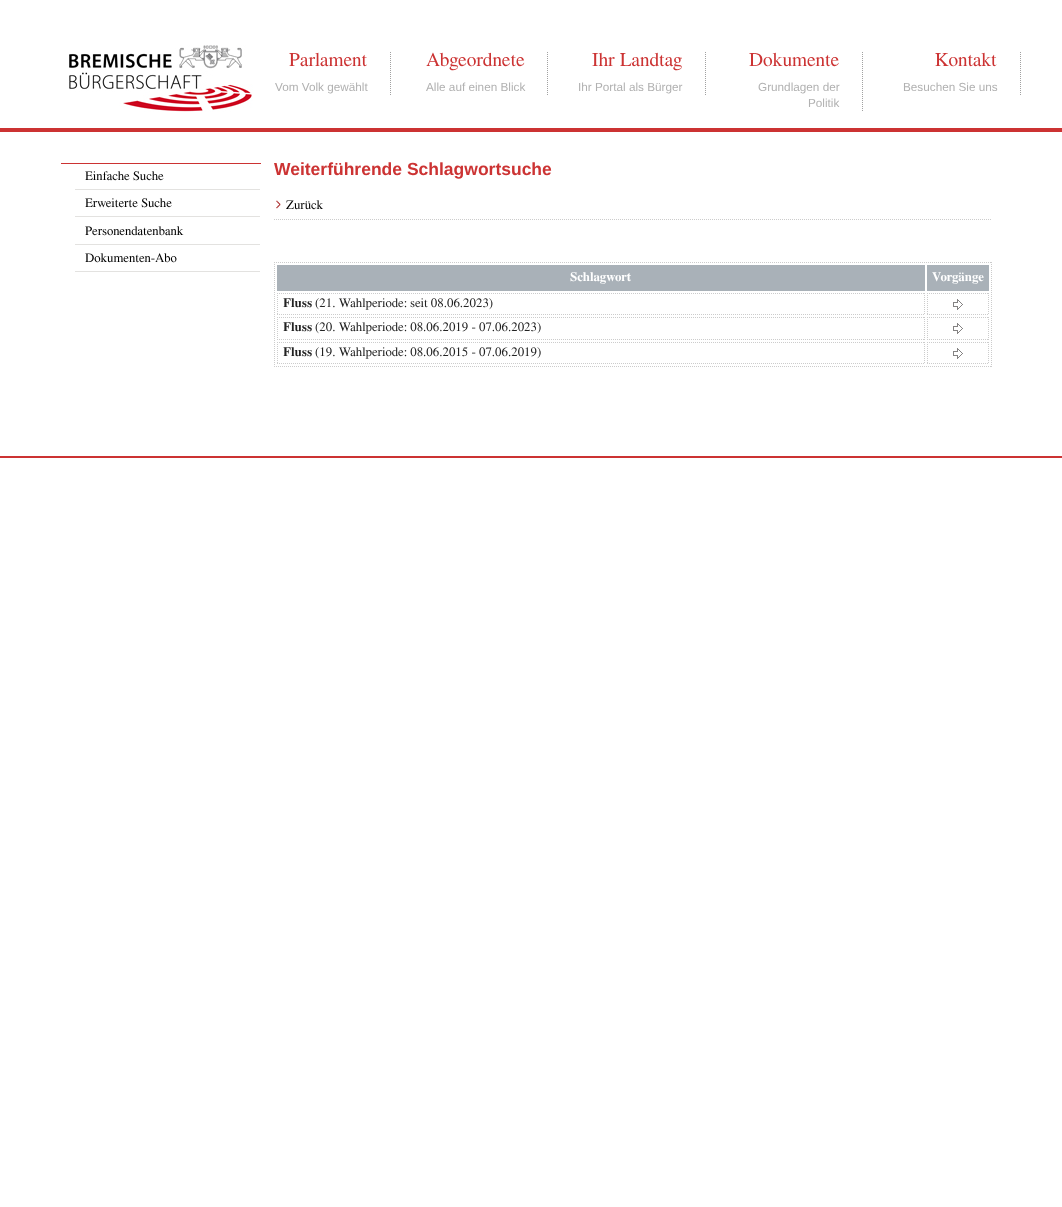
async function draw(canvas) {
	canvas.width = 1062;
	canvas.height = 1207;
	const c = canvas.getContext('2d');
	c.miterLimit = 4;
	c.fontKerning = 'normal';
	async function loadImage(src) {
		const img = new Image();
		img.src = src;
		await img.decode();
		return img;
	}

	c.fillStyle = '#fff';
	c.fillRect(0, 0, 1062, 1207);
	c.fillStyle = '#c33';
	c.fillRect(0, 128, 1062, 4);
	c.drawImage(await loadImage('img1.png'), 69, 45, 184, 67);
	c.beginPath();
	c.moveTo(390.5, 52);
	c.lineTo(390.5, 95);
	c.strokeStyle = '#a1a1a1';
	c.setLineDash([1, 1]);
	c.stroke();
	c.font = '19.5px FreeSerif';
	c.fillText('Parlament', 289, 66);
	c.font = '11.75px Liberation Sans';
	c.fillStyle = '#b1b1b1';
	c.fillText('Vom Volk gewählt', 275, 91);
	c.beginPath();
	c.moveTo(547.5, 52);
	c.lineTo(547.5, 95);
	c.stroke();
	c.font = '19.5px FreeSerif';
	c.fillStyle = '#c33';
	c.fillText('Abgeordnete', 426, 66);
	c.font = '11.75px Liberation Sans';
	c.fillStyle = '#b1b1b1';
	c.fillText('Alle auf einen Blick', 426, 91);
	c.beginPath();
	c.moveTo(705.5, 52);
	c.lineTo(705.5, 95);
	c.stroke();
	c.font = '19.5px FreeSerif';
	c.fillStyle = '#c33';
	c.fillText('Ihr Landtag', 592, 66);
	c.font = '11.75px Liberation Sans';
	c.fillStyle = '#b1b1b1';
	c.fillText('Ihr Portal als Bürger', 578, 91);
	c.beginPath();
	c.moveTo(862.5, 52);
	c.lineTo(862.5, 111);
	c.stroke();
	c.font = '19.5px FreeSerif';
	c.fillStyle = '#c33';
	c.fillText('Dokumente', 749, 66);
	c.font = '11.75px Liberation Sans';
	c.fillStyle = '#b1b1b1';
	c.fillText('Grundlagen der', 758, 91);
	c.fillText('Politik', 808, 107);
	c.beginPath();
	c.moveTo(1020.5, 52);
	c.lineTo(1020.5, 95);
	c.stroke();
	c.font = '19.5px FreeSerif';
	c.fillStyle = '#c33';
	c.fillText('Kontakt', 935, 66);
	c.font = '11.75px Liberation Sans';
	c.fillStyle = '#b1b1b1';
	c.fillText('Besuchen Sie uns', 903, 91);
	for (const [x, y, w, h, color] of [
		[0, 456, 1062, 2, '#c33'],
		[61, 163, 200, 1, '#c33'],
		[75, 189, 185, 1, '#e3e2e0'],
	]) {
		c.fillStyle = color;
		c.fillRect(x, y, w, h);
	}
	c.font = '12.9px FreeSerif';
	c.fillStyle = '#000';
	c.fillText('Einfache Suche', 85, 180);
	c.fillStyle = '#e3e2e0';
	c.fillRect(75, 216, 185, 1);
	c.fillStyle = '#000';
	c.fillText('Erweiterte Suche', 85, 207);
	c.fillStyle = '#e3e2e0';
	c.fillRect(75, 244, 185, 1);
	c.fillStyle = '#000';
	c.fillText('Personendatenbank', 85, 235);
	c.fillStyle = '#e3e2e0';
	c.fillRect(75, 271, 185, 1);
	c.fillStyle = '#000';
	c.fillText('Dokumenten-Abo', 85, 262);
	c.font = 'bold 17.5px Liberation Sans';
	c.fillStyle = '#c33';
	c.fillText('Weiterführende Schlagwortsuche', 274, 175);
	c.drawImage(await loadImage('img2.png'), 276, 200, 5, 9);
	c.font = '12.9px FreeSerif';
	c.fillStyle = '#000';
	c.fillText('Zurück', 286, 209);
	c.beginPath();
	c.moveTo(274, 219.5);
	c.lineTo(992, 219.5);
	c.strokeStyle = '#ccc';
	c.stroke();
	c.beginPath();
	c.moveTo(274, 262.5);
	c.lineTo(992, 262.5);
	c.stroke();
	c.beginPath();
	c.moveTo(991.5, 262);
	c.lineTo(991.5, 367);
	c.stroke();
	c.beginPath();
	c.moveTo(274, 366.5);
	c.lineTo(992, 366.5);
	c.stroke();
	c.beginPath();
	c.moveTo(274.5, 262);
	c.lineTo(274.5, 367);
	c.stroke();
	c.fillStyle = '#a9b1b8';
	c.fillRect(277, 265, 648, 26);
	c.font = 'bold 12.9px FreeSerif';
	c.fillStyle = '#fff';
	c.fillText('Schlagwort', 570, 281);
	c.fillStyle = '#a9b1b8';
	c.fillRect(927, 265, 62, 26);
	c.fillStyle = '#fff';
	c.fillText('Vorgänge', 932, 281);
	c.beginPath();
	c.moveTo(277, 293.5);
	c.lineTo(925, 293.5);
	c.stroke();
	c.beginPath();
	c.moveTo(924.5, 293);
	c.lineTo(924.5, 315);
	c.stroke();
	c.beginPath();
	c.moveTo(277, 314.5);
	c.lineTo(925, 314.5);
	c.stroke();
	c.beginPath();
	c.moveTo(277.5, 293);
	c.lineTo(277.5, 315);
	c.stroke();
	c.fillStyle = '#222';
	c.fillText('Fluss', 283, 307);
	c.font = '12.9px FreeSerif';
	c.fillText('(21. Wahlperiode: seit 08.06.2023)', 315, 307);
	c.beginPath();
	c.moveTo(927, 293.5);
	c.lineTo(989, 293.5);
	c.moveTo(988.5, 293);
	c.lineTo(988.5, 315);
	c.moveTo(927, 314.5);
	c.lineTo(989, 314.5);
	c.moveTo(927.5, 293);
	c.lineTo(927.5, 315);
	c.stroke();
	c.drawImage(await loadImage('img3.png'), 953, 299, 10, 11);
	c.beginPath();
	c.moveTo(277, 317.5);
	c.lineTo(925, 317.5);
	c.stroke();
	c.beginPath();
	c.moveTo(924.5, 317);
	c.lineTo(924.5, 340);
	c.stroke();
	c.beginPath();
	c.moveTo(277, 339.5);
	c.lineTo(925, 339.5);
	c.stroke();
	c.beginPath();
	c.moveTo(277.5, 317);
	c.lineTo(277.5, 340);
	c.stroke();
	c.font = 'bold 12.9px FreeSerif';
	c.fillText('Fluss', 283, 331);
	c.font = '12.9px FreeSerif';
	c.fillText('(20. Wahlperiode: 08.06.2019 - 07.06.2023)', 315, 331);
	c.beginPath();
	c.moveTo(927, 317.5);
	c.lineTo(989, 317.5);
	c.moveTo(988.5, 317);
	c.lineTo(988.5, 340);
	c.moveTo(927, 339.5);
	c.lineTo(989, 339.5);
	c.moveTo(927.5, 317);
	c.lineTo(927.5, 340);
	c.stroke();
	c.drawImage(await loadImage('img3.png'), 953, 323, 10, 11);
	c.beginPath();
	c.moveTo(277, 342.5);
	c.lineTo(925, 342.5);
	c.stroke();
	c.beginPath();
	c.moveTo(924.5, 342);
	c.lineTo(924.5, 364);
	c.stroke();
	c.beginPath();
	c.moveTo(277, 363.5);
	c.lineTo(925, 363.5);
	c.stroke();
	c.beginPath();
	c.moveTo(277.5, 342);
	c.lineTo(277.5, 364);
	c.stroke();
	c.font = 'bold 12.9px FreeSerif';
	c.fillText('Fluss', 283, 356);
	c.font = '12.9px FreeSerif';
	c.fillText('(19. Wahlperiode: 08.06.2015 - 07.06.2019)', 315, 356);
	c.beginPath();
	c.moveTo(927, 342.5);
	c.lineTo(989, 342.5);
	c.moveTo(988.5, 342);
	c.lineTo(988.5, 364);
	c.moveTo(927, 363.5);
	c.lineTo(989, 363.5);
	c.moveTo(927.5, 342);
	c.lineTo(927.5, 364);
	c.stroke();
	c.drawImage(await loadImage('img3.png'), 953, 348, 10, 11);
}

draw(document.querySelector('canvas'));
